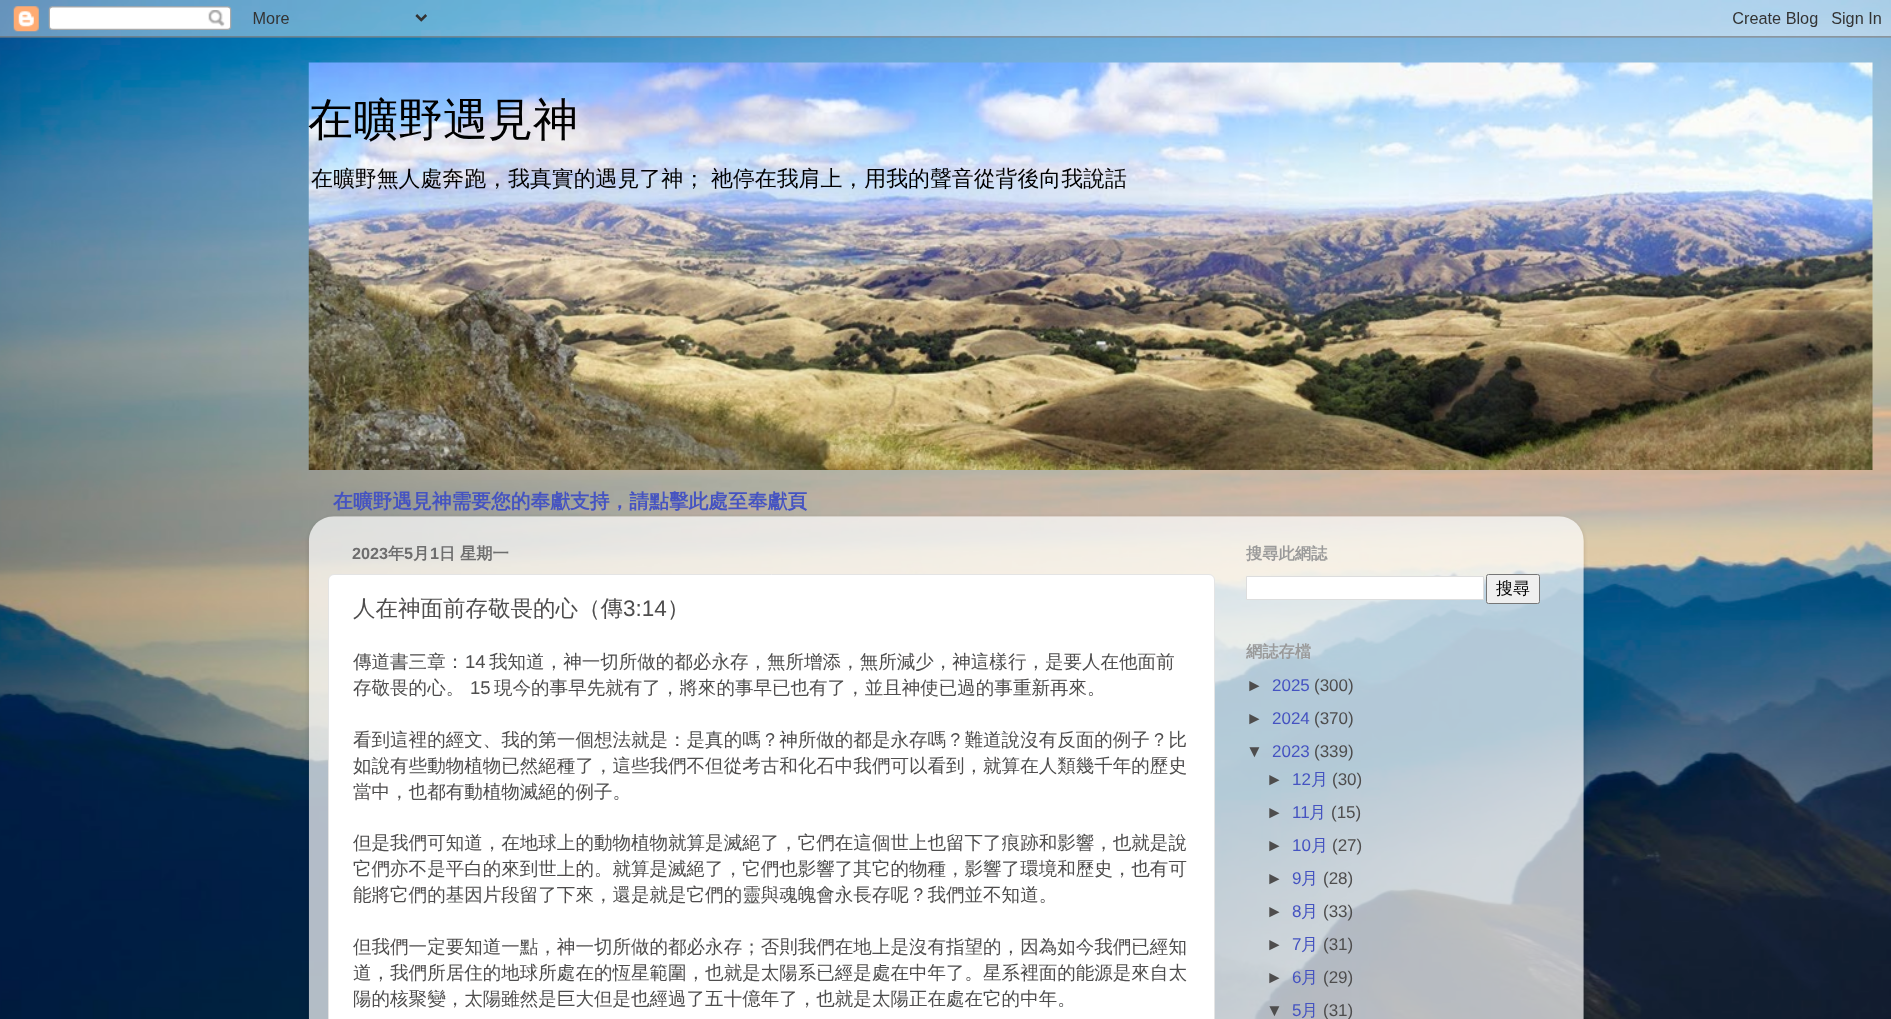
async function draw(canvas) {
	canvas.width = 1891;
	canvas.height = 1019;
	const c = canvas.getContext('2d');
	c.miterLimit = 4;
	c.fontKerning = 'normal';
	async function loadImage(src) {
		const img = new Image();
		img.src = src;
		await img.decode();
		return img;
	}

	c.fillStyle = '#fff';
	c.fillRect(0, 0, 1891, 1019);
	c.drawImage(await loadImage('img1.png'), 0, 0, 1891, 1019);
	c.drawImage(await loadImage('img2.png'), 0, 0, 1891, 38);
	c.drawImage(await loadImage('img3.png'), 308, 62, 1565, 408);
	c.font = '500 45px WenQuanYi Zen Hei';
	c.fillStyle = '#000';
	c.fillText('在曠野遇見神', 308, 135);
	c.font = '500 21.9px WenQuanYi Zen Hei';
	c.fillText('在曠野無人處奔跑，我真實的遇見了神；', 311, 186);
	c.fillText('祂停在我肩上，用我的聲音從背後向我說話', 711, 186);
	c.font = 'bold 19.75px WenQuanYi Zen Hei';
	c.fillStyle = '#4553c1';
	c.fillText('在曠野遇見神需要您的奉獻支持，請點擊此處至奉獻頁', 333, 508);
	c.save();
	c.beginPath();
	c.moveTo(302, 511);
	c.lineTo(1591, 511);
	c.lineTo(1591, 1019);
	c.lineTo(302, 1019);
	c.closePath();
	c.moveTo(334, 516);
	c.lineTo(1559, 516);
	c.bezierCurveTo(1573, 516, 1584, 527, 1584, 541);
	c.lineTo(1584, 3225);
	c.lineTo(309, 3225);
	c.lineTo(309, 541);
	c.bezierCurveTo(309, 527, 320, 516, 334, 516);
	c.closePath();
	c.clip('evenodd');
	c.fillStyle = '#00000026';
	c.filter = 'blur(2px)';
	c.beginPath();
	c.roundRect(309, 518, 1275, 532, 25);
	c.fill();
	c.filter = 'none';
	c.restore();
	c.drawImage(await loadImage('img4.png'), 308, 516, 1276, 503);
	c.font = 'bold 16.25px Liberation Sans';
	c.fillStyle = '#6d6d6d';
	c.fillText('2023', 352, 559);
	c.font = 'bold 16.25px WenQuanYi Zen Hei';
	c.fillText('年', 388, 559);
	c.font = 'bold 16.25px Liberation Sans';
	c.fillText('5', 404, 559);
	c.font = 'bold 16.25px WenQuanYi Zen Hei';
	c.fillText('月', 413, 559);
	c.font = 'bold 16.25px Liberation Sans';
	c.fillText('1', 430, 559);
	c.font = 'bold 16.25px WenQuanYi Zen Hei';
	c.fillText('日 星期一', 439, 559);
	c.fillStyle = '#fff';
	c.beginPath();
	c.roundRect(328.5, 574.5, 886, 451, 5.5);
	c.fill();
	c.strokeStyle = '#e4e4e4';
	c.stroke();
	c.font = '500 22.5px WenQuanYi Zen Hei';
	c.fillStyle = '#4e4d4d';
	c.fillText('人在神面前存敬畏的心（傳', 353, 616);
	c.font = '22.5px Liberation Sans';
	c.fillText('3:14', 623, 616);
	c.font = '500 22.5px WenQuanYi Zen Hei';
	c.fillText('）', 667, 616);
	c.font = '500 18.55px WenQuanYi Zen Hei';
	c.fillText('傳道書三章：', 353, 668);
	c.font = '18.55px Liberation Sans';
	c.fillText('14', 465, 668);
	c.font = '500 18.55px WenQuanYi Zen Hei';
	c.fillText('我知道，神一切所做的都必永存，無所增添，無所減少，神這樣行，是要人在他面前', 489, 668);
	c.fillText('存敬畏的心。', 353, 694);
	c.font = '18.55px Liberation Sans';
	c.fillText('15', 470, 694);
	c.font = '500 18.55px WenQuanYi Zen Hei';
	for (const [text, x, y] of [
		['現今的事早先就有了，將來的事早已也有了，並且神使已過的事重新再來。', 494, 694],
		['看到這裡的經文、我的第一個想法就是：是真的嗎？神所做的都是永存嗎？難道說沒有反面的例子？比', 353, 746],
		['如說有些動物植物已然絕種了，這些我們不但從考古和化石中我們可以看到，就算在人類幾千年的歷史', 353, 772],
		['當中，也都有動植物滅絕的例子。', 353, 798],
		['但是我們可知道，在地球上的動物植物就算是滅絕了，它們在這個世上也留下了痕跡和影響，也就是說', 353, 849],
		['它們亦不是平白的來到世上的。就算是滅絕了，它們也影響了其它的物種，影響了環境和歷史，也有可', 353, 875],
		['能將它們的基因片段留了下來，還是就是它們的靈與魂魄會永長存呢？我們並不知道。', 353, 901],
		['但我們一定要知道一點，神一切所做的都必永存；否則我們在地上是沒有指望的，因為如今我們已經知', 353, 953],
		['道，我們所居住的地球所處在的恆星範圍，也就是太陽系已經是處在中年了。星系裡面的能源是來自太', 353, 979],
		['陽的核聚變，太陽雖然是巨大但是也經過了五十億年了，也就是太陽正在處在它的中年。', 353, 1005],
	]) {
		c.fillText(text, x, y);
	}
	c.font = 'bold 16.25px WenQuanYi Zen Hei';
	c.fillStyle = '#9a9a9a';
	c.fillText('搜尋此網誌', 1246, 559);
	c.fillStyle = '#fff';
	c.beginPath();
	c.rect(1246.5, 576.5, 237, 23);
	c.fill();
	c.strokeStyle = '#ddd';
	c.stroke();
	c.fillStyle = '#efefef';
	c.beginPath();
	c.roundRect(1486.5, 574.5, 53, 29, 2);
	c.fill();
	c.strokeStyle = '#767676';
	c.stroke();
	c.font = '500 17px WenQuanYi Zen Hei';
	c.fillStyle = '#000';
	c.fillText('搜尋', 1496, 594);
	c.font = 'bold 16.25px WenQuanYi Zen Hei';
	c.fillStyle = '#9a9a9a';
	c.fillText('網誌存檔', 1246, 657);
	c.font = '17px Liberation Sans';
	c.fillStyle = '#4e4d4d';
	c.fillText('►', 1246, 691);
	c.fillStyle = '#4553c1';
	c.fillText('2025', 1272, 691);
	c.fillStyle = '#4e4d4d';
	c.fillText('(300)', 1314, 691);
	c.fillText('►', 1246, 724);
	c.fillStyle = '#4553c1';
	c.fillText('2024', 1272, 724);
	c.fillStyle = '#4e4d4d';
	c.fillText('(370)', 1314, 724);
	c.fillText('▼', 1246, 757);
	c.fillStyle = '#4553c1';
	c.fillText('2023', 1272, 757);
	c.fillStyle = '#4e4d4d';
	c.fillText('(339)', 1314, 757);
	c.fillText('►', 1266, 785);
	c.fillStyle = '#4553c1';
	c.fillText('12', 1292, 785);
	c.font = '500 17px WenQuanYi Zen Hei';
	c.fillText('月', 1311, 785);
	c.font = '17px Liberation Sans';
	c.fillStyle = '#4e4d4d';
	c.fillText('(30)', 1332, 785);
	c.fillText('►', 1266, 818);
	c.fillStyle = '#4553c1';
	c.fillText('11', 1292, 818);
	c.font = '500 17px WenQuanYi Zen Hei';
	c.fillText('月', 1309, 818);
	c.font = '17px Liberation Sans';
	c.fillStyle = '#4e4d4d';
	c.fillText('(15)', 1331, 818);
	c.fillText('►', 1266, 851);
	c.fillStyle = '#4553c1';
	c.fillText('10', 1292, 851);
	c.font = '500 17px WenQuanYi Zen Hei';
	c.fillText('月', 1311, 851);
	c.font = '17px Liberation Sans';
	c.fillStyle = '#4e4d4d';
	c.fillText('(27)', 1332, 851);
	c.fillText('►', 1266, 884);
	c.fillStyle = '#4553c1';
	c.fillText('9', 1292, 884);
	c.font = '500 17px WenQuanYi Zen Hei';
	c.fillText('月', 1301, 884);
	c.font = '17px Liberation Sans';
	c.fillStyle = '#4e4d4d';
	c.fillText('(28)', 1323, 884);
	c.fillText('►', 1266, 917);
	c.fillStyle = '#4553c1';
	c.fillText('8', 1292, 917);
	c.font = '500 17px WenQuanYi Zen Hei';
	c.fillText('月', 1301, 917);
	c.font = '17px Liberation Sans';
	c.fillStyle = '#4e4d4d';
	c.fillText('(33)', 1323, 917);
	c.fillText('►', 1266, 950);
	c.fillStyle = '#4553c1';
	c.fillText('7', 1292, 950);
	c.font = '500 17px WenQuanYi Zen Hei';
	c.fillText('月', 1301, 950);
	c.font = '17px Liberation Sans';
	c.fillStyle = '#4e4d4d';
	c.fillText('(31)', 1323, 950);
	c.fillText('►', 1266, 983);
	c.fillStyle = '#4553c1';
	c.fillText('6', 1292, 983);
	c.font = '500 17px WenQuanYi Zen Hei';
	c.fillText('月', 1301, 983);
	c.font = '17px Liberation Sans';
	c.fillStyle = '#4e4d4d';
	c.fillText('(29)', 1323, 983);
	c.fillText('▼', 1266, 1016);
	c.fillStyle = '#4553c1';
	c.fillText('5', 1292, 1016);
	c.font = '500 17px WenQuanYi Zen Hei';
	c.fillText('月', 1301, 1016);
	c.font = '17px Liberation Sans';
	c.fillStyle = '#4e4d4d';
	c.fillText('(31)', 1323, 1016);
}

draw(document.querySelector('canvas'));
